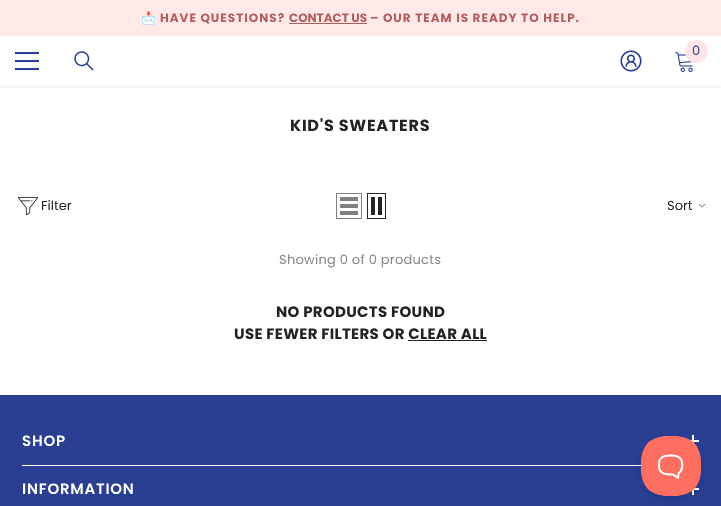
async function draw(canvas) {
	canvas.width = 721;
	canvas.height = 506;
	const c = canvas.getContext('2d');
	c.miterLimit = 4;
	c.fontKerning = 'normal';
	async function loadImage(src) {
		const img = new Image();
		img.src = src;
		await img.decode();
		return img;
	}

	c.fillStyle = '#fff';
	c.fillRect(0, 0, 721, 506);
	c.fillStyle = '#ffe8e8';
	c.fillRect(0, 0, 721, 36);
	c.letterSpacing = '1px';
	c.font = 'bold 12px Noto Color Emoji';
	c.fillStyle = '#b05d5d';
	c.fillText('📩', 141, 22);
	c.font = 'bold 12px Poppins';
	c.fillText('HAVE QUESTIONS?', 160, 22);
	c.letterSpacing = '0px';
	c.fillText('CONTACT US', 289, 22);
	c.fillRect(289, 23, 78, 1);
	c.letterSpacing = '1px';
	c.fillText('– OUR TEAM IS READY TO HELP.', 370, 22);
	c.save();
	c.beginPath();
	c.rect(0, 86, 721, 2);
	c.clip();
	c.fillStyle = '#0000001a';
	c.filter = 'blur(1.5px)';
	c.beginPath();
	c.rect(0, 37, 721, 50);
	c.fill();
	c.filter = 'none';
	c.restore();
	c.drawImage(await loadImage('img1.png'), 620, 50, 22, 22);
	c.drawImage(await loadImage('img2.png'), 675, 52, 18, 20);
	c.fillStyle = '#ffe5e8';
	c.beginPath();
	c.arc(696.5, 51.5, 11.5, 0, 2 * Math.PI);
	c.fill();
	c.letterSpacing = '0.25px';
	c.font = '13px Poppins';
	c.fillStyle = '#2a3e92';
	c.fillText('0', 692, 55);
	for (const [x, y, w, h, color] of [
		[15, 60, 24, 2, '#2a3e92'],
		[15, 52, 24, 2, '#2a3e92'],
		[15, 68, 24, 2, '#2a3e92'],
	]) {
		c.fillStyle = color;
		c.fillRect(x, y, w, h);
	}
	c.drawImage(await loadImage('img3.png'), 74, 51, 20, 20);
	c.letterSpacing = '0.75px';
	c.font = 'bold 16px Poppins';
	c.fillStyle = '#232323';
	c.fillText('KID\'S SWEATERS', 290, 131);
	c.drawImage(await loadImage('img4.png'), 18, 196, 20, 20);
	c.letterSpacing = '0px';
	c.font = '13px Poppins';
	c.fillText('Filter', 41, 210);
	c.strokeStyle = '#808080';
	c.strokeRect(336.5, 193.5, 25, 25);
	for (const [x, y, w, h, color] of [
		[340, 211, 18, 4, '#808080'],
		[340, 204, 18, 4, '#808080'],
		[340, 197, 18, 4, '#808080'],
	]) {
		c.fillStyle = color;
		c.fillRect(x, y, w, h);
	}
	c.strokeStyle = '#232323';
	c.strokeRect(367.5, 193.5, 18, 25);
	c.fillStyle = '#232323';
	c.fillRect(378, 197, 4, 18);
	c.fillRect(371, 197, 4, 18);
	c.fillText('Sort', 667, 210);
	c.drawImage(await loadImage('img5.png'), 698, 204, 8, 4);
	c.letterSpacing = '0.25px';
	c.fillStyle = '#868686';
	c.fillText('Showing 0 of 0 products', 279, 264);
	c.letterSpacing = '0.3px';
	c.font = 'bold 15px Poppins';
	c.fillStyle = '#232323';
	c.fillText('NO PRODUCTS FOUND', 276, 317);
	c.fillText('USE FEWER FILTERS OR CLEAR ALL', 234, 339);
	for (const [x, y, w, h, color] of [
		[408, 340, 79, 1, '#232323'],
		[0, 395, 721, 111, '#2a3e92'],
		[22, 465, 619, 1, '#fff'],
	]) {
		c.fillStyle = color;
		c.fillRect(x, y, w, h);
	}
	c.letterSpacing = '0.75px';
	c.font = '600 15px Poppins';
	c.fillText('SHOP', 22, 446);
	c.fillRect(692, 435, 2, 12);
	c.fillRect(687, 440, 12, 2);
	c.fillText('INFORMATION', 22, 494);
	c.fillRect(692, 483, 2, 12);
	c.fillRect(687, 488, 12, 2);
	c.fillStyle = '#0000001a';
	c.filter = 'blur(3.5px)';
	c.beginPath();
	c.roundRect(641, 440, 60, 60, 30);
	c.fill();
	c.filter = 'none';
	c.drawImage(await loadImage('img6.png'), 641, 436, 60, 60);
}

draw(document.querySelector('canvas'));
